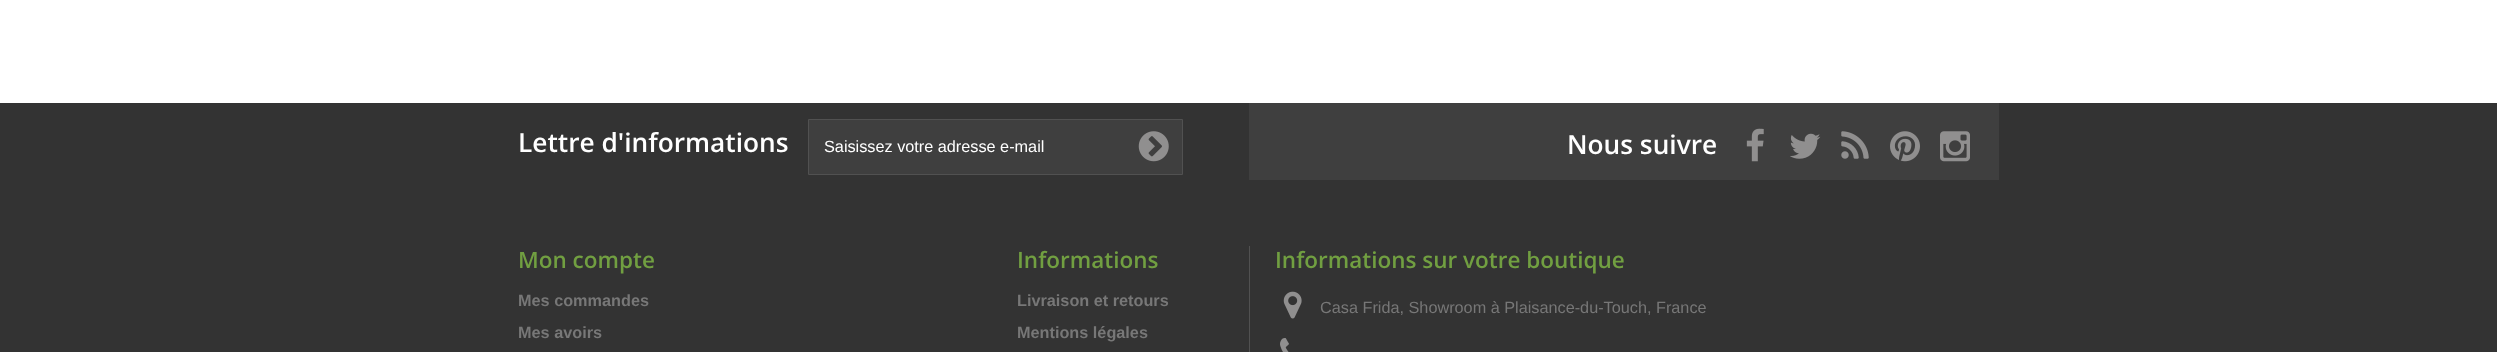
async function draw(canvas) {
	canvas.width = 2497;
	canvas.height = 352;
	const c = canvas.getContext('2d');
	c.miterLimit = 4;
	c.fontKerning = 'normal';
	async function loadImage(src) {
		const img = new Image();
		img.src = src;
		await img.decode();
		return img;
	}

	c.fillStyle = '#333';
	c.fillRect(0, 0, 2497, 352);
	c.fillStyle = '#fff';
	c.fillRect(0, 0, 2497, 103);
	c.font = '600 26.25px Open Sans';
	c.fillText('Lettre d\'informations', 518, 152);
	c.fillStyle = '#3f3f3f';
	c.beginPath();
	c.rect(808.5, 119.5, 374, 55);
	c.fill();
	c.strokeStyle = '#515151';
	c.stroke();
	c.font = '16.25px Liberation Sans';
	c.fillStyle = '#fff';
	c.fillText('Saisissez votre adresse e-mail', 824, 152);
	c.drawImage(await loadImage('img1.png'), 1138, 131, 31, 31);
	c.fillStyle = '#3f3f3f';
	c.fillRect(1249, 103, 750, 77);
	c.font = '600 26.25px Open Sans';
	c.fillStyle = '#fff';
	c.fillText('Nous suivre', 1567, 154);
	c.drawImage(await loadImage('img2.png'), 1746, 128, 18, 34);
	c.drawImage(await loadImage('img3.png'), 1790, 133, 31, 26);
	c.drawImage(await loadImage('img4.png'), 1841, 131, 28, 28);
	c.drawImage(await loadImage('img5.png'), 1890, 131, 30, 31);
	c.drawImage(await loadImage('img6.png'), 1940, 131, 30, 31);
	c.font = '600 22.5px Open Sans';
	c.fillStyle = '#719f41';
	c.fillText('Mon compte', 518, 268);
	c.font = 'bold 16.25px Liberation Sans';
	c.fillStyle = '#777';
	c.fillText('Mes commandes', 518, 306);
	c.fillText('Mes avoirs', 518, 338);
	c.font = '600 22.5px Open Sans';
	c.fillStyle = '#719f41';
	c.fillText('Informations', 1017, 268);
	c.font = 'bold 16.25px Liberation Sans';
	c.fillStyle = '#777';
	c.fillText('Livraison et retours', 1017, 306);
	c.fillText('Mentions légales', 1017, 338);
	c.fillStyle = '#515151';
	c.fillRect(1249, 246, 1, 106);
	c.font = '600 22.5px Open Sans';
	c.fillStyle = '#719f41';
	c.fillText('Informations sur votre boutique', 1275, 268);
	c.drawImage(await loadImage('img7.png'), 1283, 291, 19, 28);
	c.font = '16.25px Liberation Sans';
	c.fillStyle = '#777';
	c.fillText('Casa Frida, Showroom à Plaisance-du-Touch, France', 1320, 313);
	c.drawImage(await loadImage('img8.png'), 1280, 338, 9, 14);
}

draw(document.querySelector('canvas'));
